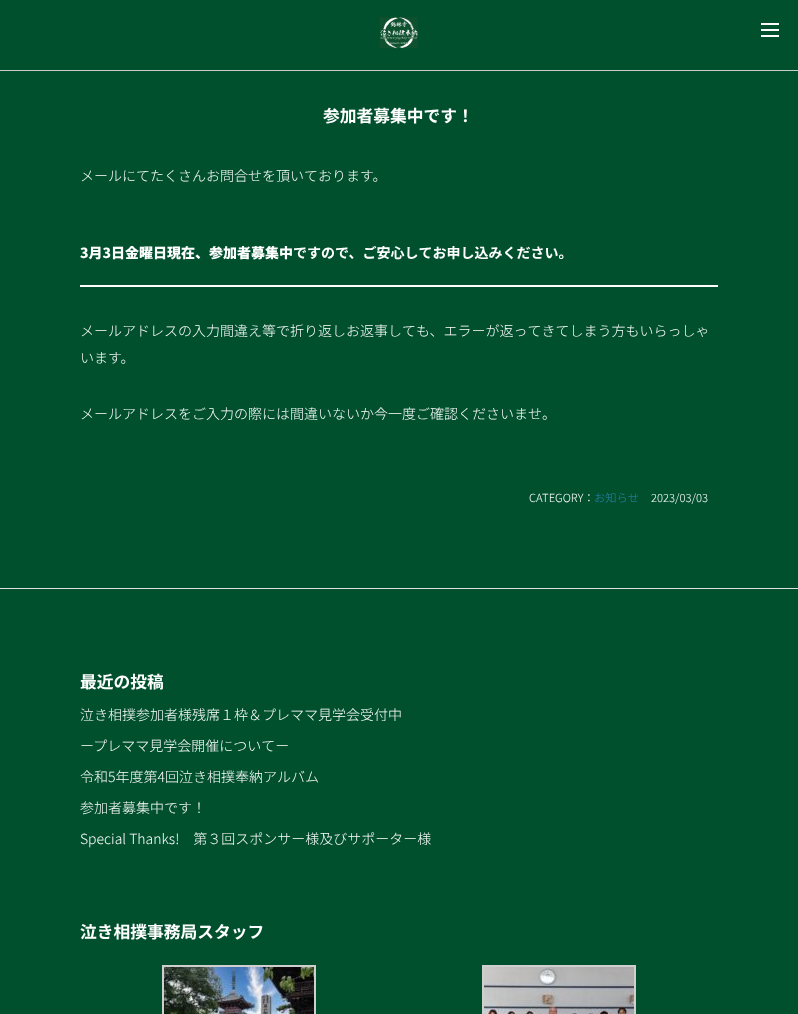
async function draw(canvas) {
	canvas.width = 798;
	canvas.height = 1014;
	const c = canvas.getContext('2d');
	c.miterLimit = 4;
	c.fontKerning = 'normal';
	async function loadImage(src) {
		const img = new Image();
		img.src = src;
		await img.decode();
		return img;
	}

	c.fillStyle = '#00502e';
	c.fillRect(0, 0, 798, 1014);
	c.fillStyle = '#ccc';
	c.fillRect(0, 70, 798, 1);
	c.drawImage(await loadImage('img1.png'), 379, 17, 39, 32);
	for (const [x, y, w, h, color] of [
		[761, 29, 18, 2, '#fff'],
		[761, 23, 18, 2, '#fff'],
		[761, 35, 18, 2, '#fff'],
	]) {
		c.fillStyle = color;
		c.fillRect(x, y, w, h);
	}
	c.font = 'bold 16.75px Noto Sans JP';
	c.fillText('参加者募集中です！', 323, 122);
	c.font = '300 14px Noto Sans JP';
	c.fillText('メールにてたくさんお問合せを頂いております。', 80, 181);
	c.fillRect(80, 285, 638, 2);
	c.font = '900 14px Noto Sans JP';
	c.fillText('3月3日金曜日現在、参加者募集中', 80, 258);
	c.font = 'bold 14px Noto Sans JP';
	c.fillText('ですので、ご安心してお申し込みください。', 293, 258);
	c.font = '300 14px Noto Sans JP';
	for (const [text, x, y] of [
		['メールアドレスの入力間違え等で折り返しお返事しても、エラーが返ってきてしまう方もいらっしゃ', 80, 336],
		['います。', 80, 363],
		['メールアドレスをご入力の際には間違いないか今一度ご確認くださいませ。', 80, 419],
	]) {
		c.fillText(text, x, y);
	}
	c.font = '300 11.25px Noto Sans JP';
	c.fillText('CATEGORY：', 529, 502);
	c.fillStyle = '#2b86b5';
	c.fillText('お知らせ', 594, 502);
	c.fillStyle = '#fff';
	c.fillText('2023/03/03', 651, 502);
	c.fillStyle = '#dfdfdf';
	c.fillRect(0, 588, 798, 1);
	c.font = 'bold 16.75px Noto Sans JP';
	c.fillStyle = '#fff';
	c.fillText('最近の投稿', 80, 688);
	c.font = '300 14px Noto Sans JP';
	for (const [text, x, y] of [
		['泣き相撲参加者様残席１枠＆プレママ見学会受付中', 80, 720],
		['ープレママ見学会開催についてー', 80, 751],
		['令和5年度第4回泣き相撲奉納アルバム', 80, 782],
		['参加者募集中です！', 80, 813],
		['Special Thanks!　第３回スポンサー様及びサポーター様', 80, 844],
	]) {
		c.fillText(text, x, y);
	}
	c.font = 'bold 16.75px Noto Sans JP';
	c.fillText('泣き相撲事務局スタッフ', 80, 938);
	c.strokeStyle = '#cfcfcf';
	c.lineWidth = 2;
	c.strokeRect(163, 966, 152, 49);
	c.drawImage(await loadImage('img2.png'), 164, 967, 150, 47);
	c.strokeRect(483, 966, 152, 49);
	c.drawImage(await loadImage('img3.png'), 484, 967, 150, 47);
}

draw(document.querySelector('canvas'));
